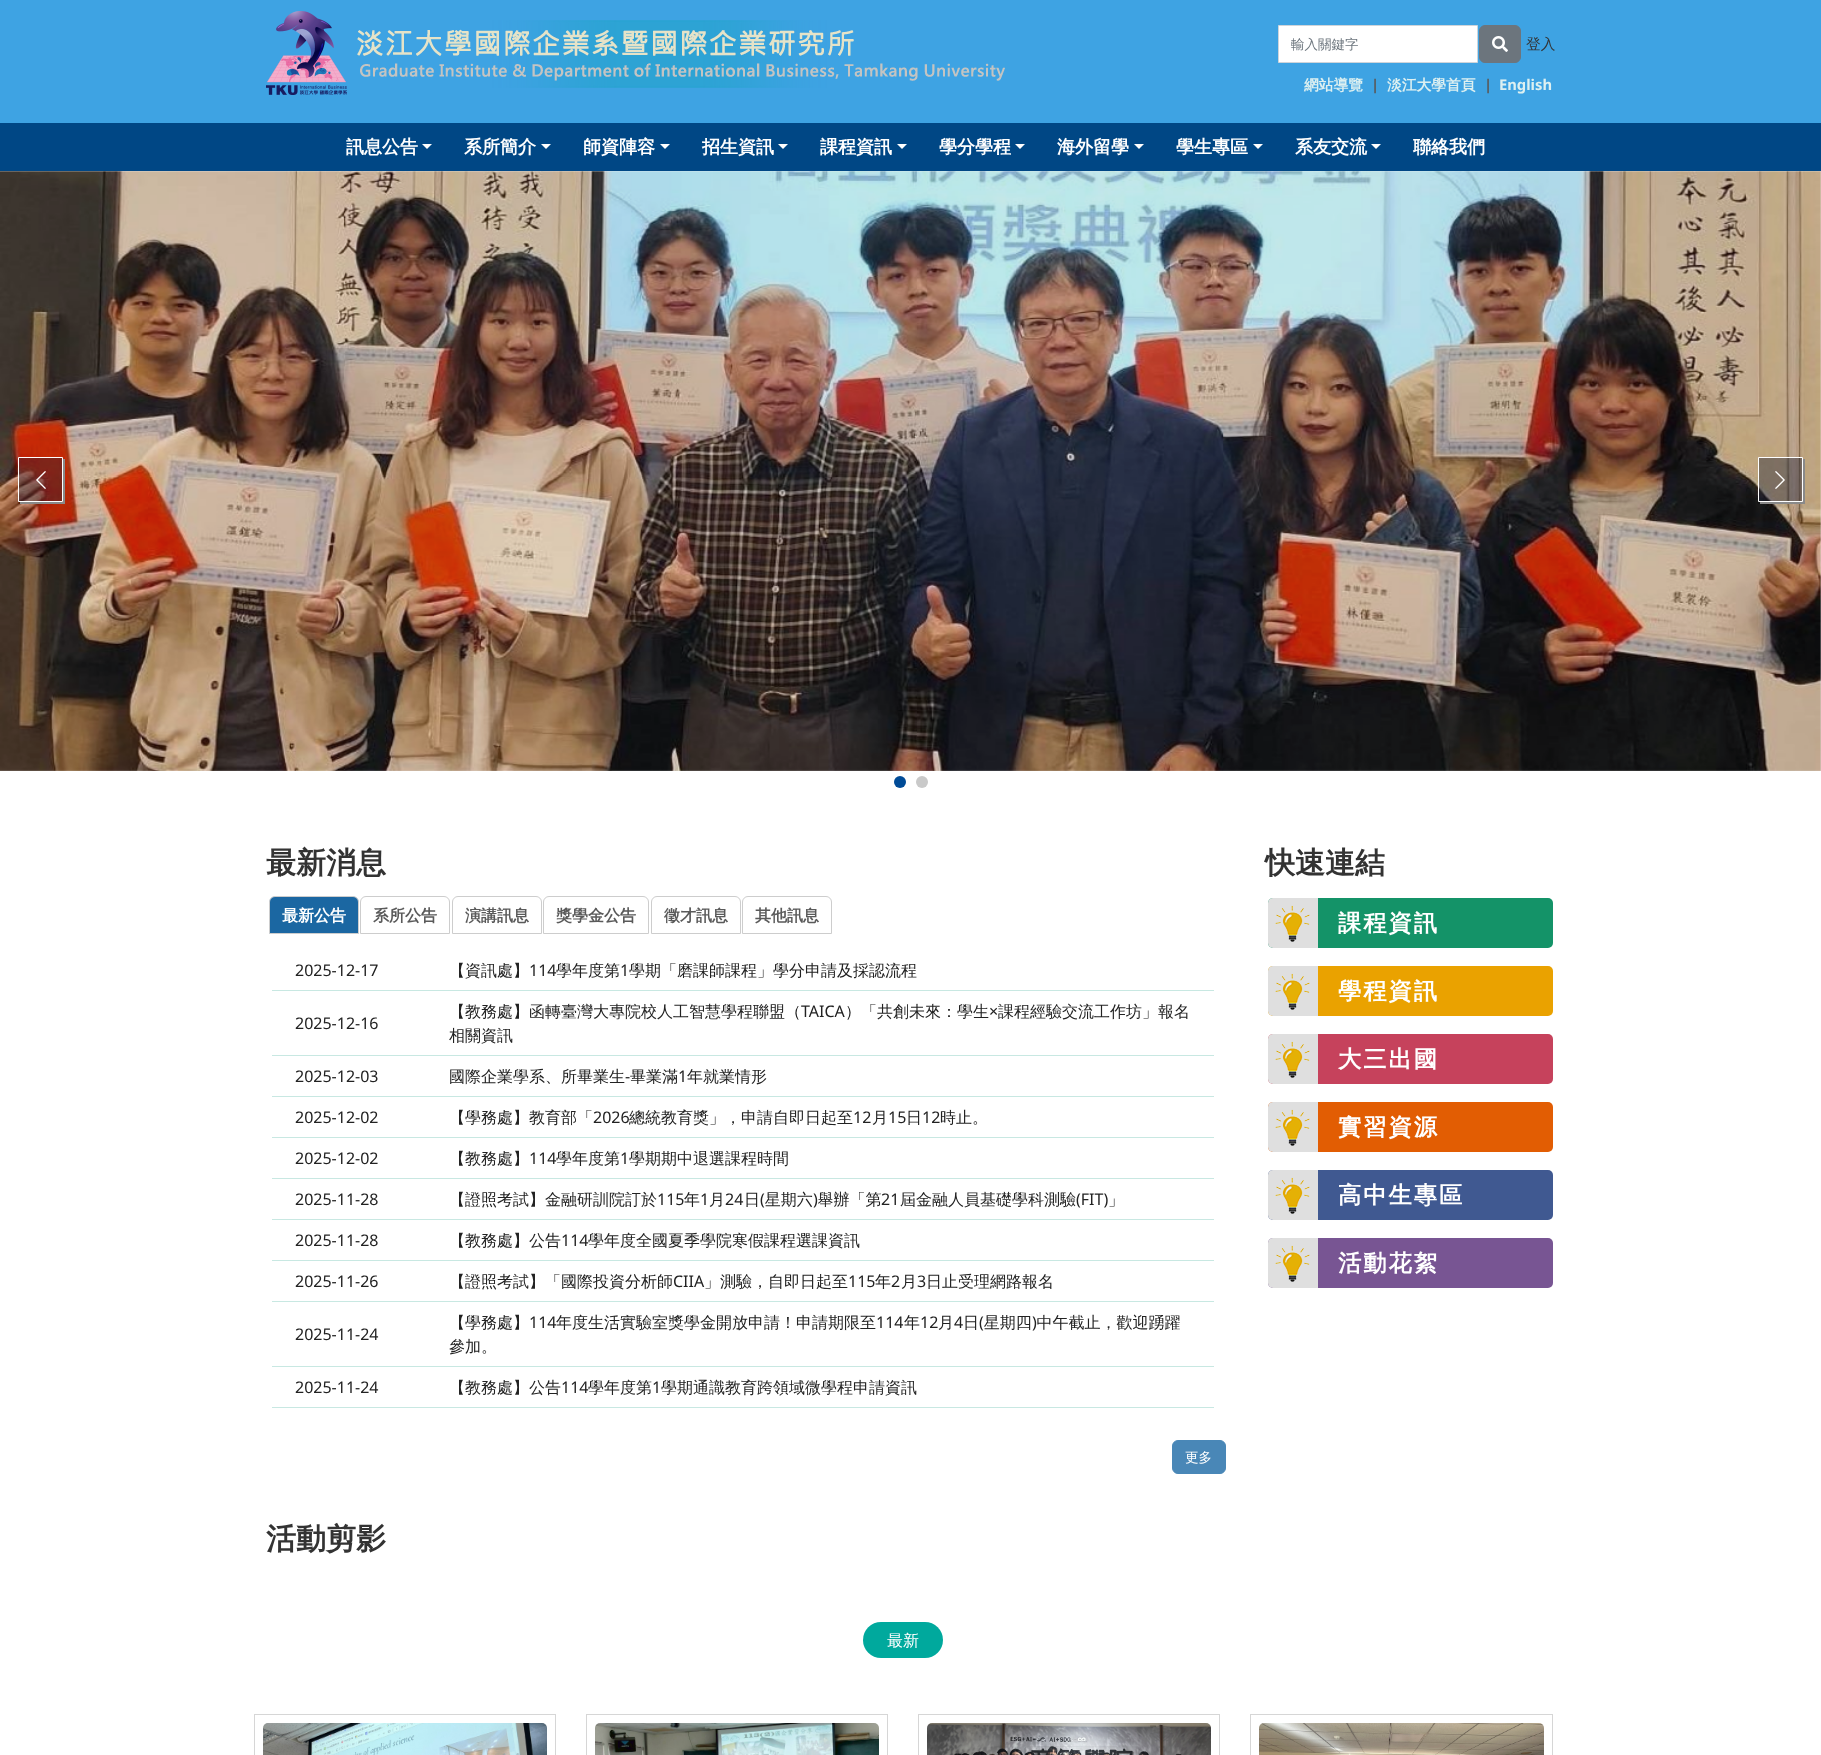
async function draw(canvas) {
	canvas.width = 1821;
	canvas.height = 1755;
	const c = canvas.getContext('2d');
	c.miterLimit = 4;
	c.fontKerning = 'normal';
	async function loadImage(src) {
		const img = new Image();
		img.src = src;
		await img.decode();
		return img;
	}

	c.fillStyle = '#fff';
	c.fillRect(0, 0, 1821, 1755);
	c.fillStyle = '#e8e8eb';
	c.fillRect(0, 171, 1821, 600);
	c.fillStyle = '#3ea3e3';
	c.fillRect(0, 0, 1821, 123);
	c.drawImage(await loadImage('img1.png'), 266, 11, 739, 84);
	c.fillStyle = '#fff';
	c.beginPath();
	c.rect(1278.5, 25.5, 199, 37);
	c.fill();
	c.strokeStyle = '#ced4da';
	c.stroke();
	c.font = '500 13.5px WenQuanYi Zen Hei';
	c.fillStyle = '#6c757d';
	c.fillText('輸入關鍵字', 1291, 49);
	c.beginPath();
	c.roundRect(1479.5, 25.5, 41, 37, 5.5);
	c.fill();
	c.strokeStyle = '#6c757d';
	c.stroke();
	c.drawImage(await loadImage('img2.png'), 1492, 36, 16, 16);
	c.font = '500 14.75px WenQuanYi Zen Hei';
	c.fillStyle = '#333';
	c.fillText('登入', 1526, 49);
	c.font = 'bold 14.75px WenQuanYi Zen Hei';
	c.fillStyle = '#ddf0f1';
	c.fillText('網站導覽', 1304, 90);
	c.font = 'bold 14.75px Noto Sans';
	c.fillStyle = '#5a5a5a';
	c.fillText('|', 1371, 90);
	c.font = 'bold 14.75px WenQuanYi Zen Hei';
	c.fillStyle = '#ddf0f1';
	c.fillText('淡江大學首頁', 1387, 90);
	c.font = 'bold 14.75px Noto Sans';
	c.fillStyle = '#5a5a5a';
	c.fillText('|', 1484, 90);
	c.fillStyle = '#ddf0f1';
	c.fillText('English', 1499, 90);
	c.fillStyle = '#004785';
	c.fillRect(0, 123, 1821, 48);
	c.font = 'bold 18px WenQuanYi Zen Hei';
	c.fillStyle = '#fff';
	c.fillText('訊息公告', 346, 153);
	c.beginPath();
	c.moveTo(422, 144);
	c.lineTo(432, 144);
	c.lineTo(427, 149);
	c.closePath();
	c.fill();
	c.fillText('系所簡介', 464, 153);
	c.beginPath();
	c.moveTo(541, 144);
	c.lineTo(551, 144);
	c.lineTo(546, 149);
	c.closePath();
	c.fill();
	c.fillText('師資陣容', 583, 153);
	c.beginPath();
	c.moveTo(660, 144);
	c.lineTo(670, 144);
	c.lineTo(665, 149);
	c.closePath();
	c.fill();
	c.fillText('招生資訊', 702, 153);
	c.beginPath();
	c.moveTo(778, 144);
	c.lineTo(788, 144);
	c.lineTo(783, 149);
	c.closePath();
	c.fill();
	c.fillText('課程資訊', 820, 153);
	c.beginPath();
	c.moveTo(897, 144);
	c.lineTo(907, 144);
	c.lineTo(902, 149);
	c.closePath();
	c.fill();
	c.fillText('學分學程', 939, 153);
	c.beginPath();
	c.moveTo(1015, 144);
	c.lineTo(1025, 144);
	c.lineTo(1020, 149);
	c.closePath();
	c.fill();
	c.fillText('海外留學', 1057, 153);
	c.beginPath();
	c.moveTo(1134, 144);
	c.lineTo(1144, 144);
	c.lineTo(1139, 149);
	c.closePath();
	c.fill();
	c.fillText('學生專區', 1176, 153);
	c.beginPath();
	c.moveTo(1253, 144);
	c.lineTo(1263, 144);
	c.lineTo(1258, 149);
	c.closePath();
	c.fill();
	c.fillText('系友交流', 1295, 153);
	c.beginPath();
	c.moveTo(1371, 144);
	c.lineTo(1381, 144);
	c.lineTo(1376, 149);
	c.closePath();
	c.fill();
	c.fillText('聯絡我們', 1413, 153);
	c.drawImage(await loadImage('img3.png'), 0, 171, 1821, 600);
	c.save();
	c.beginPath();
	c.moveTo(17, 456);
	c.lineTo(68, 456);
	c.lineTo(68, 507);
	c.lineTo(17, 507);
	c.closePath();
	c.moveTo(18, 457);
	c.lineTo(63, 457);
	c.lineTo(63, 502);
	c.lineTo(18, 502);
	c.closePath();
	c.clip('evenodd');
	c.fillStyle = '#898989';
	c.filter = 'blur(0.5px)';
	c.beginPath();
	c.rect(20, 459, 45, 45);
	c.fill();
	c.filter = 'none';
	c.restore();
	c.fillStyle = '#181d3866';
	c.beginPath();
	c.rect(18.5, 457.5, 44, 44);
	c.fill();
	c.strokeStyle = '#fff';
	c.stroke();
	c.drawImage(await loadImage('img4.png'), 36, 471, 10, 18);
	c.save();
	c.beginPath();
	c.moveTo(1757, 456);
	c.lineTo(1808, 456);
	c.lineTo(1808, 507);
	c.lineTo(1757, 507);
	c.closePath();
	c.moveTo(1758, 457);
	c.lineTo(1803, 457);
	c.lineTo(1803, 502);
	c.lineTo(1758, 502);
	c.closePath();
	c.clip('evenodd');
	c.fillStyle = '#898989';
	c.filter = 'blur(0.5px)';
	c.beginPath();
	c.rect(1760, 459, 45, 45);
	c.fill();
	c.filter = 'none';
	c.restore();
	c.beginPath();
	c.rect(1758.5, 457.5, 44, 44);
	c.fill();
	c.stroke();
	c.drawImage(await loadImage('img5.png'), 1775, 471, 10, 18);
	c.fillStyle = '#004b97';
	c.beginPath();
	c.arc(900, 782, 6, 0, 2 * Math.PI);
	c.fill();
	c.fillStyle = '#c9c9c9';
	c.beginPath();
	c.arc(922, 782, 6, 0, 2 * Math.PI);
	c.fill();
	c.font = 'bold 30px WenQuanYi Zen Hei';
	c.fillStyle = '#333';
	c.fillText('最新消息', 266, 873);
	c.fillStyle = '#1b67a2';
	c.beginPath();
	c.roundRect(269.5, 896.5, 89, 37, [5.5, 5.5, 0, 0]);
	c.fill();
	c.strokeStyle = '#cdcdcd';
	c.stroke();
	c.font = 'bold 16px WenQuanYi Zen Hei';
	c.fillStyle = '#fff';
	c.fillText('最新公告', 282, 921);
	c.beginPath();
	c.roundRect(360.5, 896.5, 89, 37, [5.5, 5.5, 0, 0]);
	c.stroke();
	c.fillStyle = '#5a5a5a';
	c.fillText('系所公告', 373, 921);
	c.beginPath();
	c.roundRect(452.5, 896.5, 89, 37, [5.5, 5.5, 0, 0]);
	c.stroke();
	c.fillText('演講訊息', 465, 921);
	c.beginPath();
	c.roundRect(543.5, 896.5, 105, 37, [5.5, 5.5, 0, 0]);
	c.stroke();
	c.fillText('獎學金公告', 556, 921);
	c.beginPath();
	c.roundRect(651.5, 896.5, 89, 37, [5.5, 5.5, 0, 0]);
	c.stroke();
	c.fillText('徵才訊息', 664, 921);
	c.beginPath();
	c.roundRect(742.5, 896.5, 89, 37, [5.5, 5.5, 0, 0]);
	c.stroke();
	c.fillText('其他訊息', 755, 921);
	c.fillStyle = '#c8e8e2';
	c.fillRect(272, 990, 942, 1);
	c.font = '16px Noto Sans';
	c.fillStyle = '#222';
	c.fillText('2025-12-17', 295, 976);
	c.font = '500 16px WenQuanYi Zen Hei';
	c.fillText('【資訊處】', 449, 976);
	c.font = '16px Noto Sans';
	c.fillText('114', 529, 976);
	c.font = '500 16px WenQuanYi Zen Hei';
	c.fillText('學年度第', 556, 976);
	c.font = '16px Noto Sans';
	c.fillText('1', 620, 976);
	c.font = '500 16px WenQuanYi Zen Hei';
	c.fillText('學期「磨課師課程」學分申請及採認流程', 629, 976);
	c.fillStyle = '#c8e8e2';
	c.fillRect(272, 1055, 942, 1);
	c.font = '16px Noto Sans';
	c.fillStyle = '#222';
	c.fillText('2025-12-16', 295, 1029);
	c.font = '500 16px WenQuanYi Zen Hei';
	c.fillText('【教務處】函轉臺灣大專院校人工智慧學程聯盟（', 449, 1017);
	c.font = '16px Noto Sans';
	c.fillText('TAICA', 801, 1017);
	c.font = '500 16px WenQuanYi Zen Hei';
	c.fillText('）「共創未來：學生', 845, 1017);
	c.font = '16px Noto Sans';
	c.fillText('×', 989, 1017);
	c.font = '500 16px WenQuanYi Zen Hei';
	c.fillText('課程經驗交流工作坊」報名', 998, 1017);
	c.fillText('相關資訊', 449, 1041);
	c.fillStyle = '#c8e8e2';
	c.fillRect(272, 1096, 942, 1);
	c.font = '16px Noto Sans';
	c.fillStyle = '#222';
	c.fillText('2025-12-03', 295, 1082);
	c.font = '500 16px WenQuanYi Zen Hei';
	c.fillText('國際企業學系、所畢業生', 449, 1082);
	c.font = '16px Noto Sans';
	c.fillText('-', 625, 1082);
	c.font = '500 16px WenQuanYi Zen Hei';
	c.fillText('畢業滿', 630, 1082);
	c.font = '16px Noto Sans';
	c.fillText('1', 678, 1082);
	c.font = '500 16px WenQuanYi Zen Hei';
	c.fillText('年就業情形', 687, 1082);
	c.fillStyle = '#c8e8e2';
	c.fillRect(272, 1137, 942, 1);
	c.font = '16px Noto Sans';
	c.fillStyle = '#222';
	c.fillText('2025-12-02', 295, 1123);
	c.font = '500 16px WenQuanYi Zen Hei';
	c.fillText('【學務處】教育部「', 449, 1123);
	c.font = '16px Noto Sans';
	c.fillText('2026', 593, 1123);
	c.font = '500 16px WenQuanYi Zen Hei';
	c.fillText('總統教育獎」，申請自即日起至', 629, 1123);
	c.font = '16px Noto Sans';
	c.fillText('12', 853, 1123);
	c.font = '500 16px WenQuanYi Zen Hei';
	c.fillText('月', 872, 1123);
	c.font = '16px Noto Sans';
	c.fillText('15', 888, 1123);
	c.font = '500 16px WenQuanYi Zen Hei';
	c.fillText('日', 906, 1123);
	c.font = '16px Noto Sans';
	c.fillText('12', 922, 1123);
	c.font = '500 16px WenQuanYi Zen Hei';
	c.fillText('時止。', 940, 1123);
	c.fillStyle = '#c8e8e2';
	c.fillRect(272, 1178, 942, 1);
	c.font = '16px Noto Sans';
	c.fillStyle = '#222';
	c.fillText('2025-12-02', 295, 1164);
	c.font = '500 16px WenQuanYi Zen Hei';
	c.fillText('【教務處】', 449, 1164);
	c.font = '16px Noto Sans';
	c.fillText('114', 529, 1164);
	c.font = '500 16px WenQuanYi Zen Hei';
	c.fillText('學年度第', 556, 1164);
	c.font = '16px Noto Sans';
	c.fillText('1', 620, 1164);
	c.font = '500 16px WenQuanYi Zen Hei';
	c.fillText('學期期中退選課程時間', 629, 1164);
	c.fillStyle = '#c8e8e2';
	c.fillRect(272, 1219, 942, 1);
	c.font = '16px Noto Sans';
	c.fillStyle = '#222';
	c.fillText('2025-11-28', 295, 1205);
	c.font = '500 16px WenQuanYi Zen Hei';
	c.fillText('【證照考試】金融研訓院訂於', 449, 1205);
	c.font = '16px Noto Sans';
	c.fillText('115', 657, 1205);
	c.font = '500 16px WenQuanYi Zen Hei';
	c.fillText('年', 684, 1205);
	c.font = '16px Noto Sans';
	c.fillText('1', 700, 1205);
	c.font = '500 16px WenQuanYi Zen Hei';
	c.fillText('月', 709, 1205);
	c.font = '16px Noto Sans';
	c.fillText('24', 725, 1205);
	c.font = '500 16px WenQuanYi Zen Hei';
	c.fillText('日 星期六 舉辦「第', 744, 1205);
	c.fillText('屆金融人員基礎學科測驗', 900, 1205);
	c.font = '16px Noto Sans';
	for (const [text, x, y] of [
		['(', 760, 1205],
		[')', 813, 1205],
		['21', 881, 1205],
		['(FIT)', 1076, 1205],
	]) {
		c.fillText(text, x, y);
	}
	c.font = '500 16px WenQuanYi Zen Hei';
	c.fillText('」', 1108, 1205);
	c.fillStyle = '#c8e8e2';
	c.fillRect(272, 1260, 942, 1);
	c.font = '16px Noto Sans';
	c.fillStyle = '#222';
	c.fillText('2025-11-28', 295, 1246);
	c.font = '500 16px WenQuanYi Zen Hei';
	c.fillText('【教務處】公告', 449, 1246);
	c.font = '16px Noto Sans';
	c.fillText('114', 561, 1246);
	c.font = '500 16px WenQuanYi Zen Hei';
	c.fillText('學年度全國夏季學院寒假課程選課資訊', 588, 1246);
	c.fillStyle = '#c8e8e2';
	c.fillRect(272, 1301, 942, 1);
	c.font = '16px Noto Sans';
	c.fillStyle = '#222';
	c.fillText('2025-11-26', 295, 1287);
	c.font = '500 16px WenQuanYi Zen Hei';
	c.fillText('【證照考試】「國際投資分析師', 449, 1287);
	c.font = '16px Noto Sans';
	c.fillText('CIIA', 673, 1287);
	c.font = '500 16px WenQuanYi Zen Hei';
	c.fillText('」測驗，自即日起至', 704, 1287);
	c.font = '16px Noto Sans';
	c.fillText('115', 848, 1287);
	c.font = '500 16px WenQuanYi Zen Hei';
	c.fillText('年', 875, 1287);
	c.font = '16px Noto Sans';
	c.fillText('2', 891, 1287);
	c.font = '500 16px WenQuanYi Zen Hei';
	c.fillText('月', 901, 1287);
	c.font = '16px Noto Sans';
	c.fillText('3', 917, 1287);
	c.font = '500 16px WenQuanYi Zen Hei';
	c.fillText('日止受理網路報名', 926, 1287);
	c.fillStyle = '#c8e8e2';
	c.fillRect(272, 1366, 942, 1);
	c.font = '16px Noto Sans';
	c.fillStyle = '#222';
	c.fillText('2025-11-24', 295, 1340);
	c.font = '500 16px WenQuanYi Zen Hei';
	c.fillText('【學務處】', 449, 1328);
	c.font = '16px Noto Sans';
	c.fillText('114', 529, 1328);
	c.font = '500 16px WenQuanYi Zen Hei';
	c.fillText('年度生活實驗室獎學金開放申請！申請期限至', 556, 1328);
	c.font = '16px Noto Sans';
	c.fillText('114', 876, 1328);
	c.font = '500 16px WenQuanYi Zen Hei';
	c.fillText('年', 904, 1328);
	c.font = '16px Noto Sans';
	c.fillText('12', 920, 1328);
	c.font = '500 16px WenQuanYi Zen Hei';
	c.fillText('月', 938, 1328);
	c.font = '16px Noto Sans';
	c.fillText('4', 954, 1328);
	c.font = '500 16px WenQuanYi Zen Hei';
	c.fillText('日 星期四 中午截止，歡迎踴躍', 963, 1328);
	c.font = '16px Noto Sans';
	c.fillText('(', 979, 1328);
	c.fillText(')', 1032, 1328);
	c.font = '500 16px WenQuanYi Zen Hei';
	c.fillText('參加。', 449, 1352);
	c.fillStyle = '#c8e8e2';
	c.fillRect(272, 1407, 942, 1);
	c.font = '16px Noto Sans';
	c.fillStyle = '#222';
	c.fillText('2025-11-24', 295, 1393);
	c.font = '500 16px WenQuanYi Zen Hei';
	c.fillText('【教務處】公告', 449, 1393);
	c.font = '16px Noto Sans';
	c.fillText('114', 561, 1393);
	c.font = '500 16px WenQuanYi Zen Hei';
	c.fillText('學年度第', 588, 1393);
	c.font = '16px Noto Sans';
	c.fillText('1', 652, 1393);
	c.font = '500 16px WenQuanYi Zen Hei';
	c.fillText('學期通識教育跨領域微學程申請資訊', 661, 1393);
	c.fillStyle = '#4987b7';
	c.beginPath();
	c.roundRect(1172.5, 1440.5, 53, 33, 5.5);
	c.fill();
	c.strokeStyle = '#4987b7';
	c.stroke();
	c.font = '500 13.5px WenQuanYi Zen Hei';
	c.fillStyle = '#fff';
	c.fillText('更多', 1185, 1462);
	c.font = 'bold 30px WenQuanYi Zen Hei';
	c.fillStyle = '#333';
	c.fillText('快速連結', 1265, 873);
	c.fillStyle = '#149368';
	c.beginPath();
	c.roundRect(1268, 898, 285, 50, 5);
	c.fill();
	c.fillStyle = '#dfdfdf';
	c.beginPath();
	c.roundRect(1268, 898, 50, 50, [5, 0, 0, 5]);
	c.fill();
	c.drawImage(await loadImage('img6.png'), 1275, 905, 35, 37);
	c.letterSpacing = '2px';
	c.font = 'bold 23.25px WenQuanYi Zen Hei';
	c.fillStyle = '#fff';
	c.fillText('課程資訊', 1338, 931);
	c.fillStyle = '#eaa200';
	c.beginPath();
	c.roundRect(1268, 966, 285, 50, 5);
	c.fill();
	c.fillStyle = '#dfdfdf';
	c.beginPath();
	c.roundRect(1268, 966, 50, 50, [5, 0, 0, 5]);
	c.fill();
	c.drawImage(await loadImage('img6.png'), 1275, 973, 35, 37);
	c.fillStyle = '#fff';
	c.fillText('學程資訊', 1338, 999);
	c.fillStyle = '#c6425c';
	c.beginPath();
	c.roundRect(1268, 1034, 285, 50, 5);
	c.fill();
	c.fillStyle = '#dfdfdf';
	c.beginPath();
	c.roundRect(1268, 1034, 50, 50, [5, 0, 0, 5]);
	c.fill();
	c.drawImage(await loadImage('img6.png'), 1275, 1041, 35, 37);
	c.fillStyle = '#fff';
	c.fillText('大三出國', 1338, 1067);
	c.fillStyle = '#e25d03';
	c.beginPath();
	c.roundRect(1268, 1102, 285, 50, 5);
	c.fill();
	c.fillStyle = '#dfdfdf';
	c.beginPath();
	c.roundRect(1268, 1102, 50, 50, [5, 0, 0, 5]);
	c.fill();
	c.drawImage(await loadImage('img6.png'), 1275, 1109, 35, 37);
	c.fillStyle = '#fff';
	c.fillText('實習資源', 1338, 1135);
	c.fillStyle = '#405991';
	c.beginPath();
	c.roundRect(1268, 1170, 285, 50, 5);
	c.fill();
	c.fillStyle = '#dfdfdf';
	c.beginPath();
	c.roundRect(1268, 1170, 50, 50, [5, 0, 0, 5]);
	c.fill();
	c.drawImage(await loadImage('img6.png'), 1275, 1177, 35, 37);
	c.fillStyle = '#fff';
	c.fillText('高中生專區', 1338, 1203);
	c.fillStyle = '#785593';
	c.beginPath();
	c.roundRect(1268, 1238, 285, 50, 5);
	c.fill();
	c.fillStyle = '#dfdfdf';
	c.beginPath();
	c.roundRect(1268, 1238, 50, 50, [5, 0, 0, 5]);
	c.fill();
	c.drawImage(await loadImage('img6.png'), 1275, 1245, 35, 37);
	c.fillStyle = '#fff';
	c.fillText('活動花絮', 1338, 1271);
	c.letterSpacing = '0px';
	c.font = 'bold 30px WenQuanYi Zen Hei';
	c.fillStyle = '#333';
	c.fillText('活動剪影', 266, 1549);
	c.fillStyle = '#00a99d';
	c.beginPath();
	c.roundRect(863, 1622, 80, 36, 18);
	c.fill();
	c.font = '500 16px WenQuanYi Zen Hei';
	c.fillStyle = '#fff';
	c.fillText('最新', 887, 1646);
	c.strokeStyle = '#d6d6d6';
	c.strokeRect(254.5, 1714.5, 301, 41);
	c.drawImage(await loadImage('img7.png'), 263, 1723, 284, 32);
	c.strokeRect(586.5, 1714.5, 301, 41);
	c.drawImage(await loadImage('img8.png'), 595, 1723, 284, 32);
	c.strokeRect(918.5, 1714.5, 301, 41);
	c.drawImage(await loadImage('img9.png'), 927, 1723, 284, 32);
	c.strokeRect(1250.5, 1714.5, 302, 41);
	c.drawImage(await loadImage('img10.png'), 1259, 1723, 285, 32);
}

draw(document.querySelector('canvas'));
